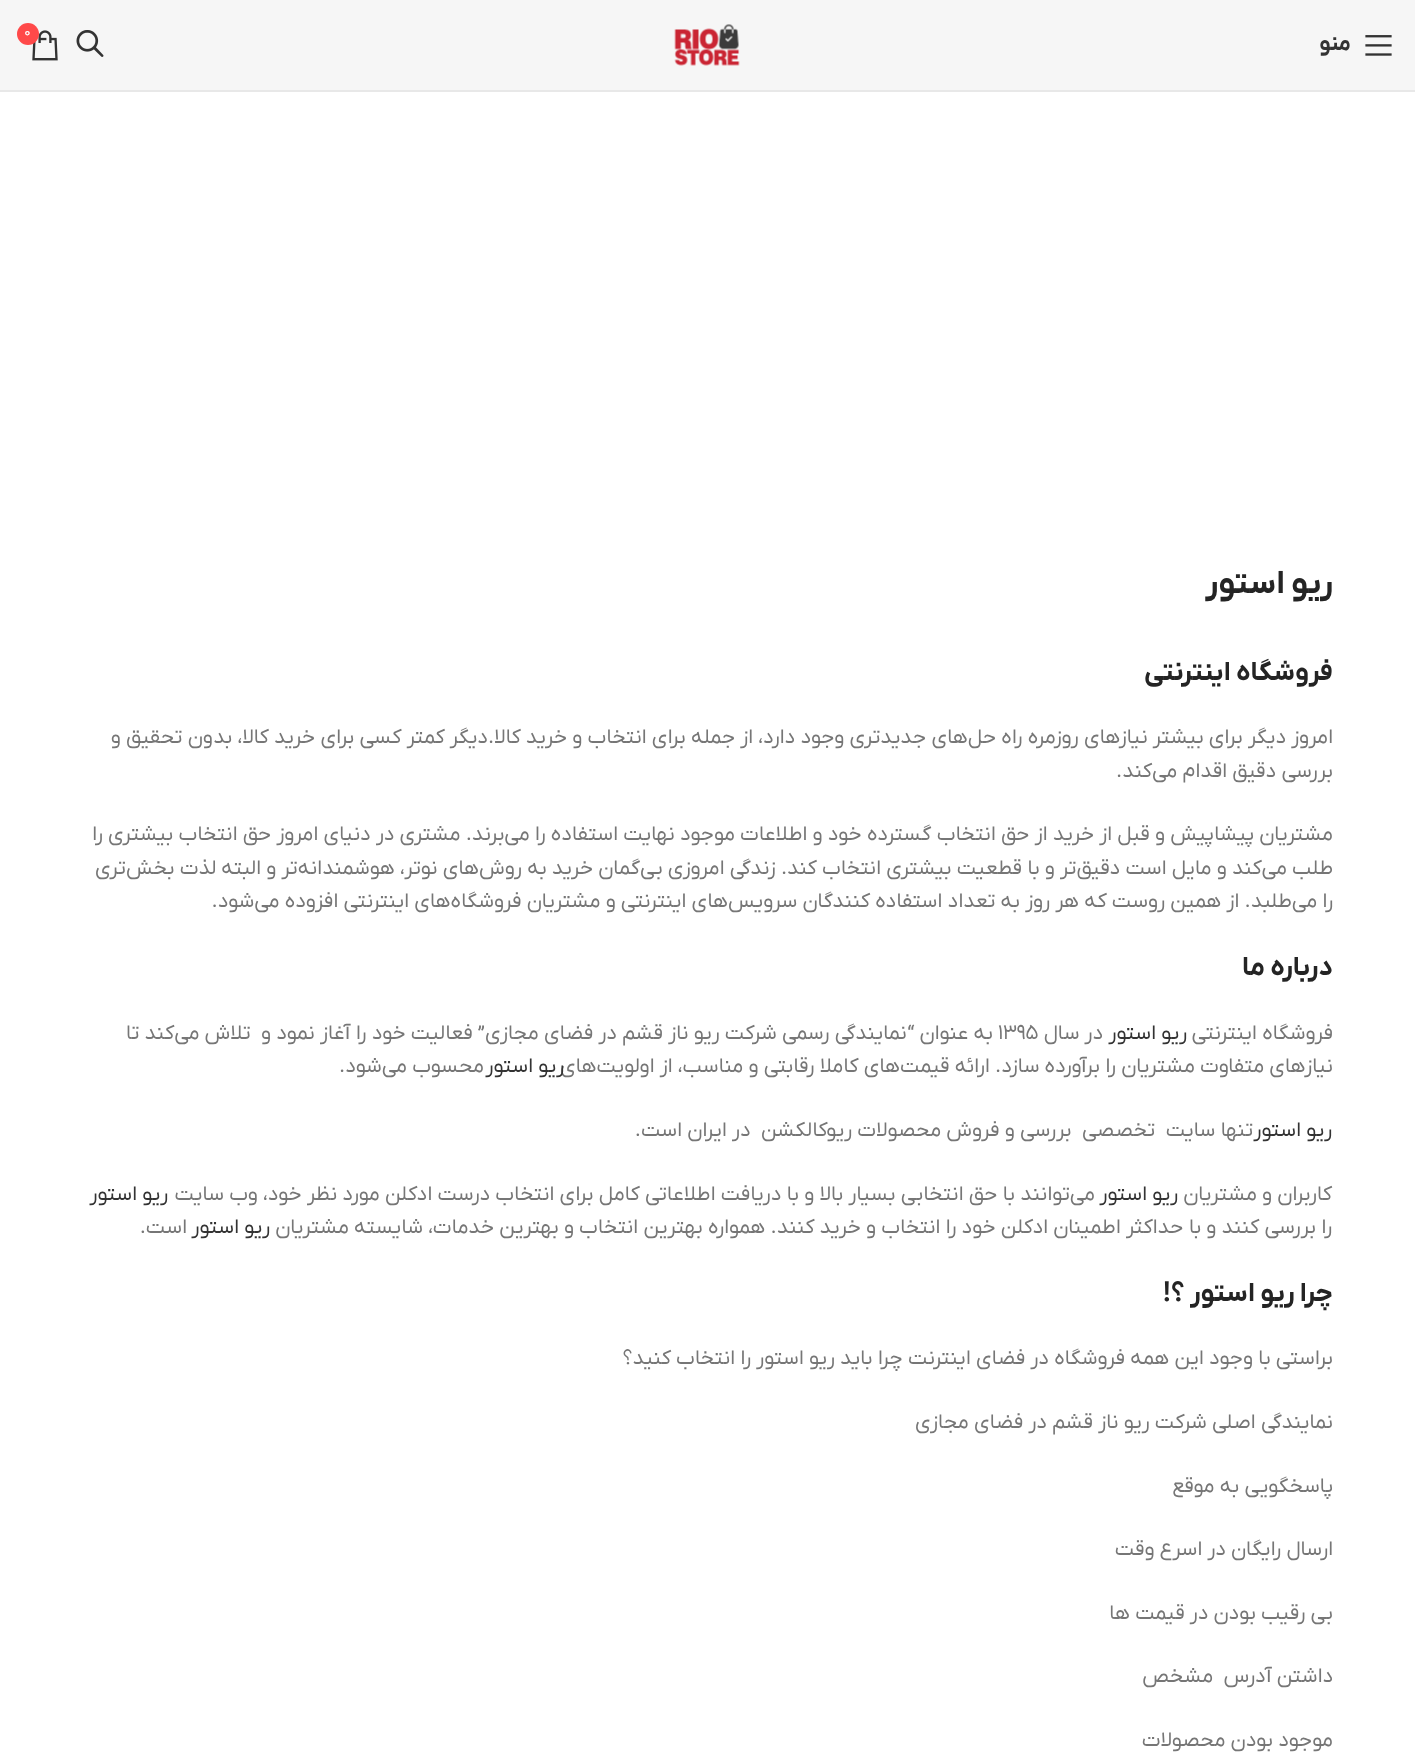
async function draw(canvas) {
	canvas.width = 1415;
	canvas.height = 1758;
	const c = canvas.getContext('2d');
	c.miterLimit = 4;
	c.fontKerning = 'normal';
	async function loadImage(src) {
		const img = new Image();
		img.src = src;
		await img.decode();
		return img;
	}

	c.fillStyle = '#fff';
	c.fillRect(0, 0, 1415, 1758);
	c.fillStyle = '#f6f6f6';
	c.fillRect(0, 0, 1415, 90);
	c.fillStyle = '#e8e8e8';
	c.fillRect(0, 90, 1415, 2);
	c.drawImage(await loadImage('img1.png'), 674, 24, 66, 42);
	c.drawImage(await loadImage('img2.png'), 76, 30, 28, 27);
	c.drawImage(await loadImage('img3.png'), 32, 30, 26, 31);
	c.fillStyle = '#ff4949';
	c.beginPath();
	c.arc(28, 34, 11, 0, 2 * Math.PI);
	c.fill();
	c.font = '14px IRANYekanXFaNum';
	c.fillStyle = '#fff';
	c.fillText('0', 24, 36);
	c.drawImage(await loadImage('img4.png'), 1365, 35, 27, 21);
	c.direction = 'rtl';
	c.font = 'bold 22px IRANYekanXFaNum';
	c.fillStyle = '#333';
	c.fillText('منو', 1351, 50);
	c.font = 'bold 33px IRANYekanXFaNum';
	c.fillStyle = '#242424';
	c.fillText('ریو استور', 1333, 593);
	c.font = 'bold 27px IRANYekanXFaNum';
	c.fillText('فروشگاه اینترنتی', 1333, 680);
	c.font = '21px IRANYekanXFaNum';
	c.fillStyle = '#767676';
	for (const [text, x, y] of [
		['امروز دیگر برای بیشتر نیازهای روزمره راه حل‌های جدیدتری وجود دارد، از جمله برای انتخاب و خرید کالا.دیگر کمتر کسی برای خرید کالا، بدون تحقیق و', 1333, 743],
		['بررسی دقیق اقدام می‌کند.', 1333, 777],
		['مشتریان پیشاپیش و قبل از خرید از حق انتخاب گسترده خود و اطلاعات موجود نهایت استفاده را می‌برند. مشتری در دنیای امروز حق انتخاب بیشتری را', 1333, 840],
		['طلب می‌کند و مایل است دقیق‌تر و با قطعیت بیشتری انتخاب کند. زندگی امروزی بی‌گمان خرید به رو‌ش‌های نوتر، هوشمندانه‌تر و البته لذت بخش‌تری', 1333, 874],
		['را می‌طلبد. از همین روست که هر روز به تعداد استفاده کنندگان سرویس‌های اینترنتی و مشتریان فروشگاه‌های اینترنتی افزوده می‌شود.', 1333, 907],
	]) {
		c.fillText(text, x, y);
	}
	c.font = 'bold 27px IRANYekanXFaNum';
	c.fillStyle = '#242424';
	c.fillText('درباره ما', 1333, 975);
	c.font = '21px IRANYekanXFaNum';
	c.fillStyle = '#767676';
	c.fillText('فروشگاه اینترنتی', 1333, 1039);
	c.fillStyle = '#333';
	c.fillText('ریو استور', 1187, 1039);
	c.fillStyle = '#767676';
	c.fillText('در سال', 1103, 1039);
	c.direction = 'ltr';
	c.fillText('1395', 998, 1039);
	c.direction = 'rtl';
	c.fillText('به عنوان “نمایندگی رسمی شرکت ریو ناز قشم در فضای مجازی” فعالیت خود را آغاز نمود و  تلاش می‌کند تا', 993, 1039);
	c.fillText('نیازهای متفاوت مشتریان را برآورده سازد. ارائه قیمت‌های کاملا رقابتی و مناسب، از اولویت‌های', 1333, 1072);
	c.fillStyle = '#333';
	c.fillText('ریو استور', 564, 1072);
	c.fillStyle = '#767676';
	c.fillText('محسوب می‌شود.', 484, 1072);
	c.fillStyle = '#333';
	c.fillText('ریو استور', 1332, 1136);
	c.fillStyle = '#767676';
	c.fillText('تنها سایت  تخصصی  بررسی و فروش محصولات ریوکالکشن  در ایران است.', 1253, 1136);
	c.fillText('کاربران و مشتریان', 1332, 1200);
	c.fillStyle = '#333';
	c.fillText('ریو استور', 1178, 1200);
	c.fillStyle = '#767676';
	c.fillText('می‌توانند با حق انتخابی بسیار بالا و با دریافت اطلاعاتی کامل برای انتخاب درست ادکلن مورد نظر خود، وب سایت', 1095, 1200);
	c.fillStyle = '#333';
	c.fillText('ریو استور', 168, 1200);
	c.fillStyle = '#767676';
	c.fillText('را بررسی کنند و با حداکثر اطمینان ادکلن خود را انتخاب و خرید کنند. همواره بهترین انتخاب و بهترین خدمات، شایسته مشتریان', 1332, 1233);
	c.fillStyle = '#333';
	c.fillText('ریو استور', 270, 1233);
	c.fillStyle = '#767676';
	c.fillText('است.', 187, 1233);
	c.font = 'bold 27px IRANYekanXFaNum';
	c.fillStyle = '#242424';
	c.fillText('چرا ریو استور ؟!', 1333, 1301);
	c.font = '21px IRANYekanXFaNum';
	c.fillStyle = '#767676';
	for (const [text, x, y] of [
		['براستی با وجود این همه فروشگاه در فضای اینترنت چرا باید ریو استور را انتخاب کنید؟', 1333, 1364],
		['نمایندگی اصلی شرکت ریو ناز قشم در فضای مجازی', 1333, 1428],
		['پاسخگویی به موقع', 1333, 1492],
		['ارسال رایگان در اسرع وقت', 1333, 1555],
		['بی رقیب بودن در قیمت ها', 1333, 1619],
		['داشتن آدرس  مشخص', 1333, 1682],
		['موجود بودن محصولات', 1333, 1746],
	]) {
		c.fillText(text, x, y);
	}
}

draw(document.querySelector('canvas'));
